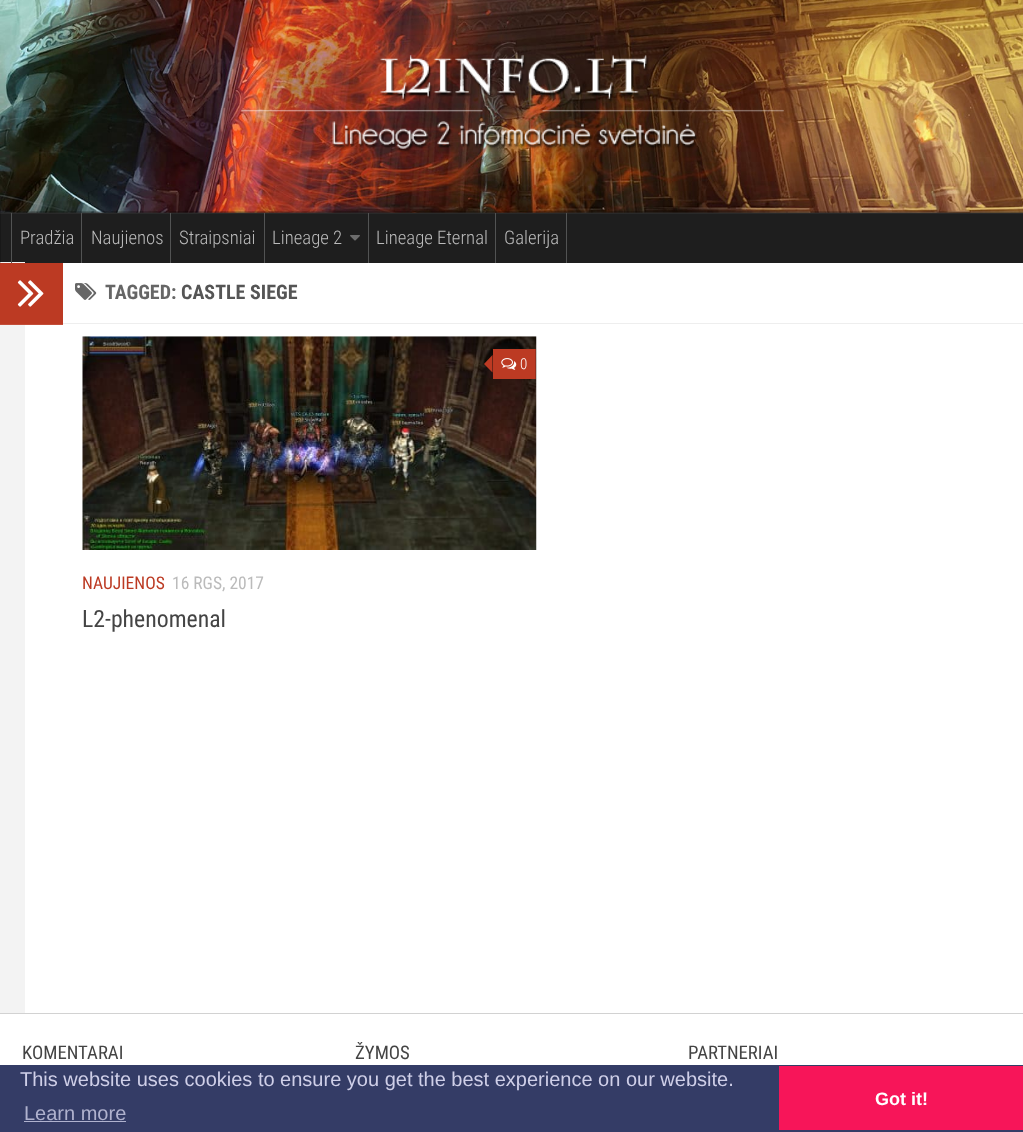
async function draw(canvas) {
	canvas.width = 1023;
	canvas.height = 1132;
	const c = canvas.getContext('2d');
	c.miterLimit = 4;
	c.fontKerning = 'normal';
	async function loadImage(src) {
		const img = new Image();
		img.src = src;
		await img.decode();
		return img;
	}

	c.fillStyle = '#eaeaea';
	c.fillRect(0, 0, 1023, 1132);
	c.fillStyle = '#0000001a';
	c.filter = 'blur(0.5px)';
	c.beginPath();
	c.rect(0, 264, 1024, 750);
	c.fill();
	c.filter = 'none';
	c.fillStyle = '#1e1e1e';
	c.fillRect(0, 212, 1023, 51);
	c.drawImage(await loadImage('img1.png'), 0, 0, 1023, 213);
	c.drawImage(await loadImage('img2.png'), 241, 54, 543, 99);
	c.fillStyle = '#00000033';
	c.beginPath();
	c.moveTo(0, 211);
	c.lineTo(0, 212);
	c.lineTo(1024, 212);
	c.lineTo(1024, 261);
	c.lineTo(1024, 211);
	c.closePath();
	c.fill();
	for (const [x, y, w, h, color] of [
		[0, 262, 25, 751, '#f3f3f3'],
		[0, 213, 1, 50, '#00000033'],
		[0, 213, 1023, 1, '#ffffff0d'],
		[11, 213, 1, 50, '#525353'],
		[81, 213, 1, 50, '#525353'],
	]) {
		c.fillStyle = color;
		c.fillRect(x, y, w, h);
	}
	c.font = '300 18.75px Roboto Condensed';
	c.fillStyle = '#bbb';
	c.fillText('Pradžia', 20, 244);
	c.fillStyle = '#525353';
	c.fillRect(170, 213, 1, 50);
	c.fillStyle = '#bbb';
	c.fillText('Naujienos', 91, 244);
	c.fillStyle = '#525353';
	c.fillRect(264, 213, 1, 50);
	c.fillStyle = '#bbb';
	c.fillText('Straipsniai', 179, 244);
	c.fillStyle = '#525353';
	c.fillRect(368, 213, 1, 50);
	c.fillStyle = '#bbb';
	c.fillText('Lineage 2', 272, 244);
	c.drawImage(await loadImage('img3.png'), 350, 235, 10, 6);
	c.fillStyle = '#525353';
	c.fillRect(495, 213, 1, 50);
	c.fillStyle = '#bbb';
	c.fillText('Lineage Eternal', 376, 244);
	c.fillStyle = '#525353';
	c.fillRect(566, 213, 1, 50);
	c.fillStyle = '#bbb';
	c.fillText('Galerija', 504, 244);
	for (const [x, y, w, h, color] of [
		[25, 263, 998, 750, '#fff'],
		[0, 263, 63, 61, '#bc3a23'],
		[0, 324, 63, 1, '#c34e39'],
	]) {
		c.fillStyle = color;
		c.fillRect(x, y, w, h);
	}
	c.drawImage(await loadImage('img4.png'), 17, 280, 27, 27);
	c.fillStyle = '#eee';
	c.fillRect(63, 323, 960, 1);
	c.drawImage(await loadImage('img5.png'), 75, 283, 22, 17);
	c.font = 'bold 20px Roboto Condensed';
	c.fillStyle = '#666';
	c.fillText('TAGGED:', 105, 299);
	c.fillStyle = '#555';
	c.fillText('CASTLE SIEGE', 181, 299);
	c.drawImage(await loadImage('img6.png'), 82, 336, 455, 214);
	c.fillStyle = '#bc3a23';
	c.fillRect(493, 349, 42, 30);
	c.fillStyle = '#962e1c';
	c.fillRect(535, 349, 1, 30);
	c.fillStyle = '#bc3a23';
	c.beginPath();
	c.moveTo(492.5, 355);
	c.lineTo(492.5, 372.5);
	c.lineTo(484, 364);
	c.closePath();
	c.fill();
	c.drawImage(await loadImage('img7.png'), 501, 358, 16, 12);
	c.font = '300 15px Roboto Condensed';
	c.fillStyle = '#fff';
	c.fillText('0', 520, 369);
	c.font = '17.5px Roboto Condensed';
	c.fillStyle = '#bc3a23';
	c.fillText('NAUJIENOS', 82, 589);
	c.fillStyle = '#bbb';
	c.fillText('16 RGS, 2017', 172, 589);
	c.font = '23.75px Roboto Condensed';
	c.fillStyle = '#444';
	c.fillText('L2-phenomenal', 82, 627);
	c.fillStyle = '#fff';
	c.fillRect(0, 1014, 1023, 51);
	c.font = '18.75px Roboto Condensed';
	c.fillStyle = '#444';
	for (const [text, x, y] of [
		['KOMENTARAI', 22, 1059],
		['ŽYMOS', 355, 1059],
		['PARTNERIAI', 688, 1059],
	]) {
		c.fillText(text, x, y);
	}
	c.fillStyle = '#343c66';
	c.fillRect(0, 1065, 1023, 67);
	c.font = '20px Liberation Sans';
	c.fillStyle = '#cfcfe8';
	c.fillText('This website uses cookies to ensure you get the best experience on our website.', 20, 1086);
	c.fillStyle = '#b0b2ce';
	c.fillText('Learn more', 24, 1120);
	c.fillRect(24, 1121, 102, 1);
	c.fillStyle = '#f71559';
	c.fillRect(779, 1066, 244, 64);
	c.font = 'bold 18px Liberation Sans';
	c.fillStyle = '#fff';
	c.fillText('Got it!', 875, 1105);
}

draw(document.querySelector('canvas'));
